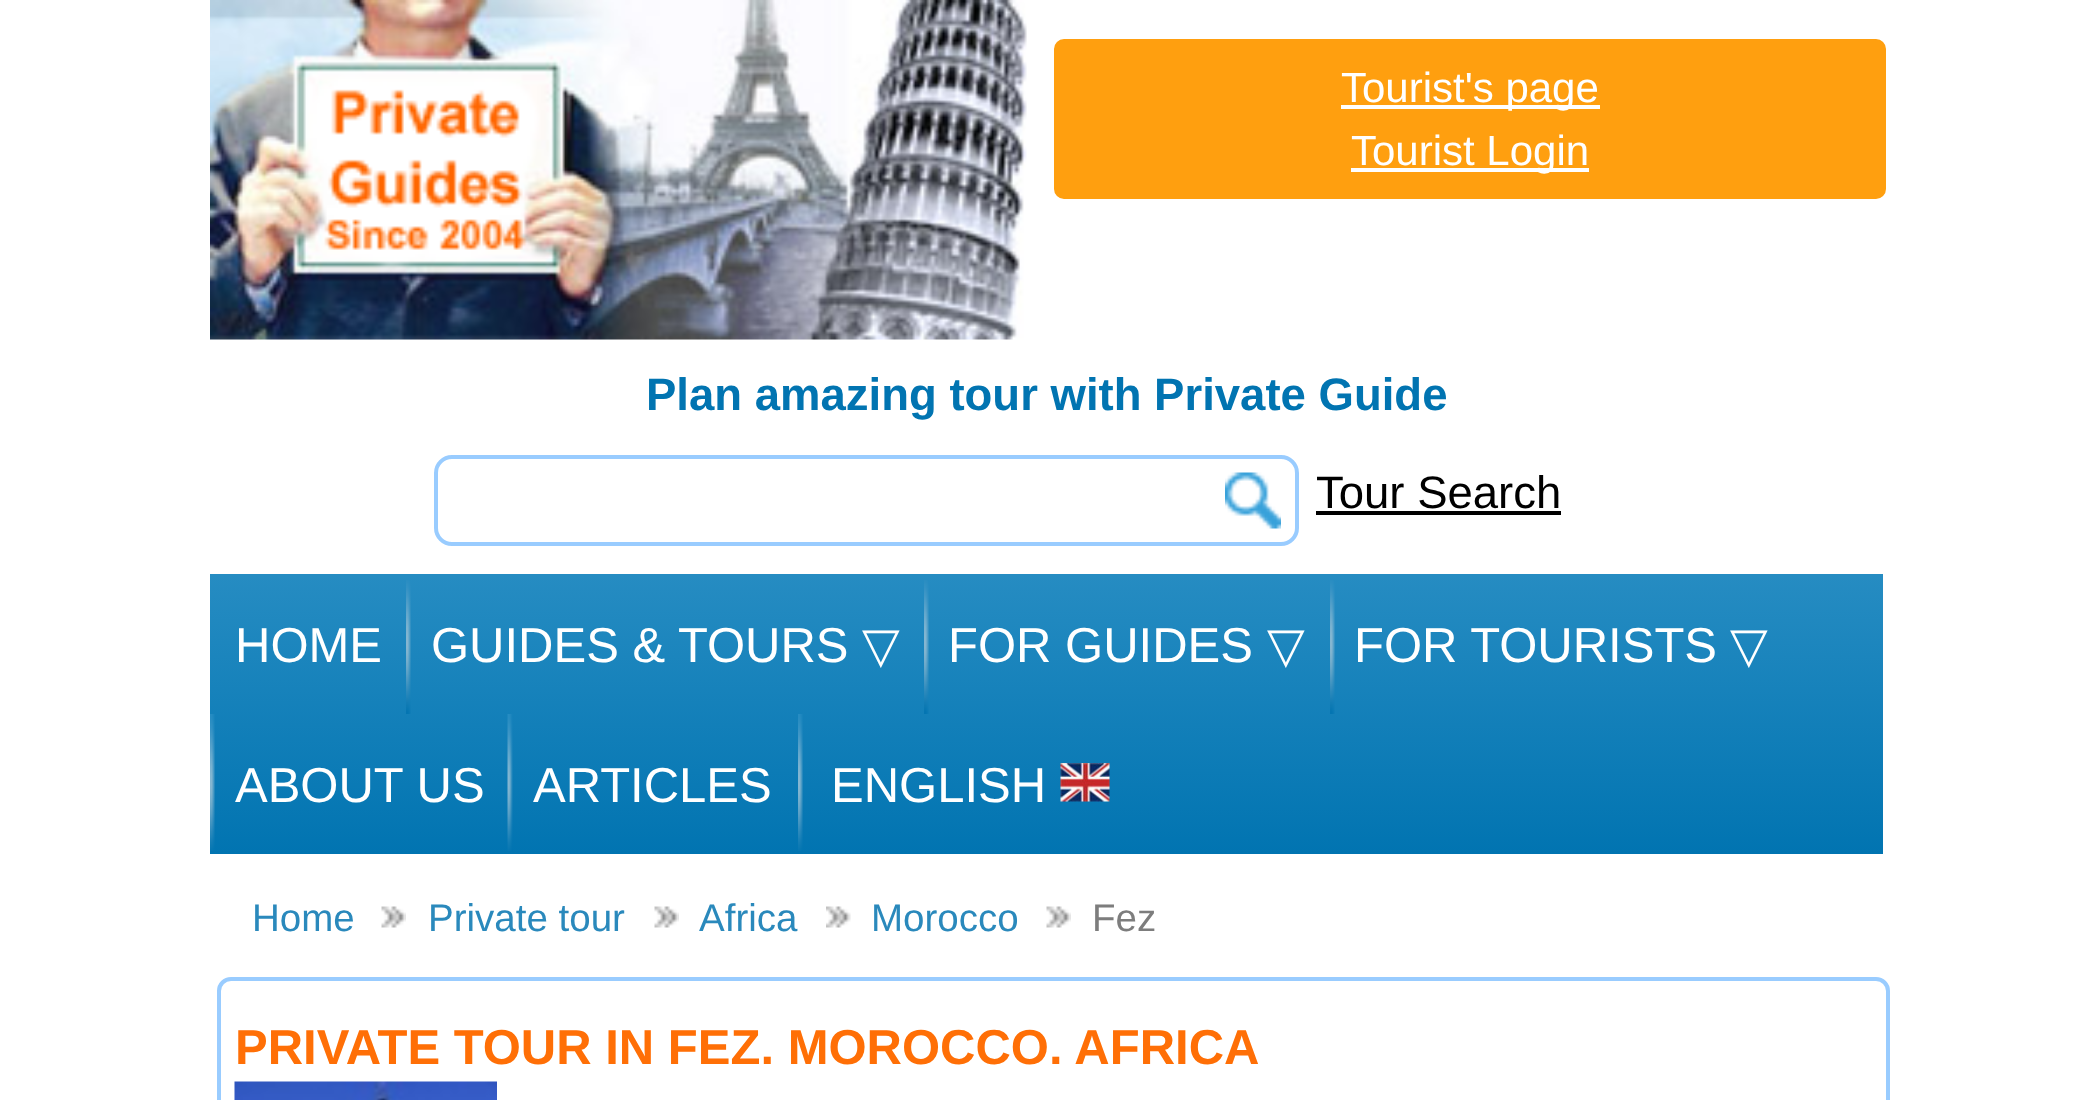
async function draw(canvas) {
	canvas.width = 2100;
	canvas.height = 1100;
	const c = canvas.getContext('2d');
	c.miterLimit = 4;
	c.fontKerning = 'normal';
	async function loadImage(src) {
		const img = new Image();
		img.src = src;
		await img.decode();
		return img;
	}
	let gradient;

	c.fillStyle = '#fff';
	c.fillRect(0, 0, 2100, 1100);
	c.drawImage(await loadImage('img1.png'), 210, 0, 817, 340);
	c.fillStyle = '#ff9f0f';
	c.beginPath();
	c.roundRect(1052, 37, 836, 164, 12);
	c.fill();
	c.strokeStyle = '#fff';
	c.lineWidth = 4;
	c.stroke();
	c.fillStyle = '#fff';
	c.fillRect(1341, 105, 259, 4);
	c.font = '42px Liberation Sans';
	c.fillText('Tourist\'s page', 1341, 102);
	c.fillRect(1351, 168, 238, 4);
	c.fillText('Tourist Login', 1351, 165);
	c.font = 'bold 45.5px Liberation Sans';
	c.fillStyle = '#0174b1';
	c.fillText('Plan amazing tour with Private Guide', 646, 410);
	c.beginPath();
	c.roundRect(436, 457, 861, 87, 16);
	c.strokeStyle = '#9cf';
	c.stroke();
	c.drawImage(await loadImage('img2.png'), 1225, 472, 56, 57);
	c.font = '45.5px Liberation Sans';
	c.fillStyle = '#000';
	c.fillText('Tour Search', 1316, 508);
	c.fillRect(1316, 511, 245, 4);
	gradient = c.createLinearGradient(1047, 574, 1047, 854);
	gradient.addColorStop(0, '#268cc2');
	gradient.addColorStop(1, '#0174b1');
	c.fillStyle = gradient;
	c.fillRect(210, 574, 1673, 280);
	c.font = '49px Liberation Sans';
	c.fillStyle = '#fff';
	c.fillText('HOME', 235, 662);
	c.drawImage(await loadImage('img3.png'), 406, 580, 5, 134);
	c.fillText('GUIDES & TOURS', 431, 662);
	c.font = '49px DejaVu Sans';
	c.fillText('▽', 862, 662);
	c.drawImage(await loadImage('img3.png'), 924, 580, 5, 134);
	c.font = '49px Liberation Sans';
	c.fillText('FOR GUIDES', 948, 662);
	c.font = '49px DejaVu Sans';
	c.fillText('▽', 1267, 662);
	c.drawImage(await loadImage('img3.png'), 1330, 580, 5, 134);
	c.font = '49px Liberation Sans';
	c.fillText('FOR TOURISTS', 1354, 662);
	c.font = '49px DejaVu Sans';
	c.fillText('▽', 1730, 662);
	c.drawImage(await loadImage('img4.png'), 210, 714, 5, 137);
	c.font = '49px Liberation Sans';
	c.fillText('ABOUT US', 235, 802);
	c.drawImage(await loadImage('img5.png'), 507, 714, 6, 137);
	c.fillText('ARTICLES', 533, 802);
	c.drawImage(await loadImage('img4.png'), 798, 714, 5, 137);
	c.fillText('ENGLISH', 831, 802);
	c.drawImage(await loadImage('img6.png'), 1060, 763, 50, 39);
	c.font = '38.5px Liberation Sans';
	c.fillStyle = '#2a89bc';
	c.fillText('Home', 252, 931);
	c.drawImage(await loadImage('img7.png'), 381, 906, 25, 22);
	c.fillText('Private tour', 428, 931);
	c.drawImage(await loadImage('img8.png'), 654, 906, 25, 22);
	c.fillText('Africa', 699, 931);
	c.drawImage(await loadImage('img9.png'), 826, 906, 25, 22);
	c.fillText('Morocco', 871, 931);
	c.drawImage(await loadImage('img10.png'), 1046, 906, 25, 22);
	c.fillStyle = '#7d7d7d';
	c.fillText('Fez', 1092, 931);
	c.beginPath();
	c.roundRect(219, 979, 1669, 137, 12);
	c.stroke();
	c.font = 'bold 49px Liberation Sans';
	c.fillStyle = '#ff6f06';
	c.fillText('PRIVATE TOUR IN FEZ. MOROCCO. AFRICA', 235, 1064);
	c.drawImage(await loadImage('img11.png'), 234, 1081, 263, 19);
}

draw(document.querySelector('canvas'));
